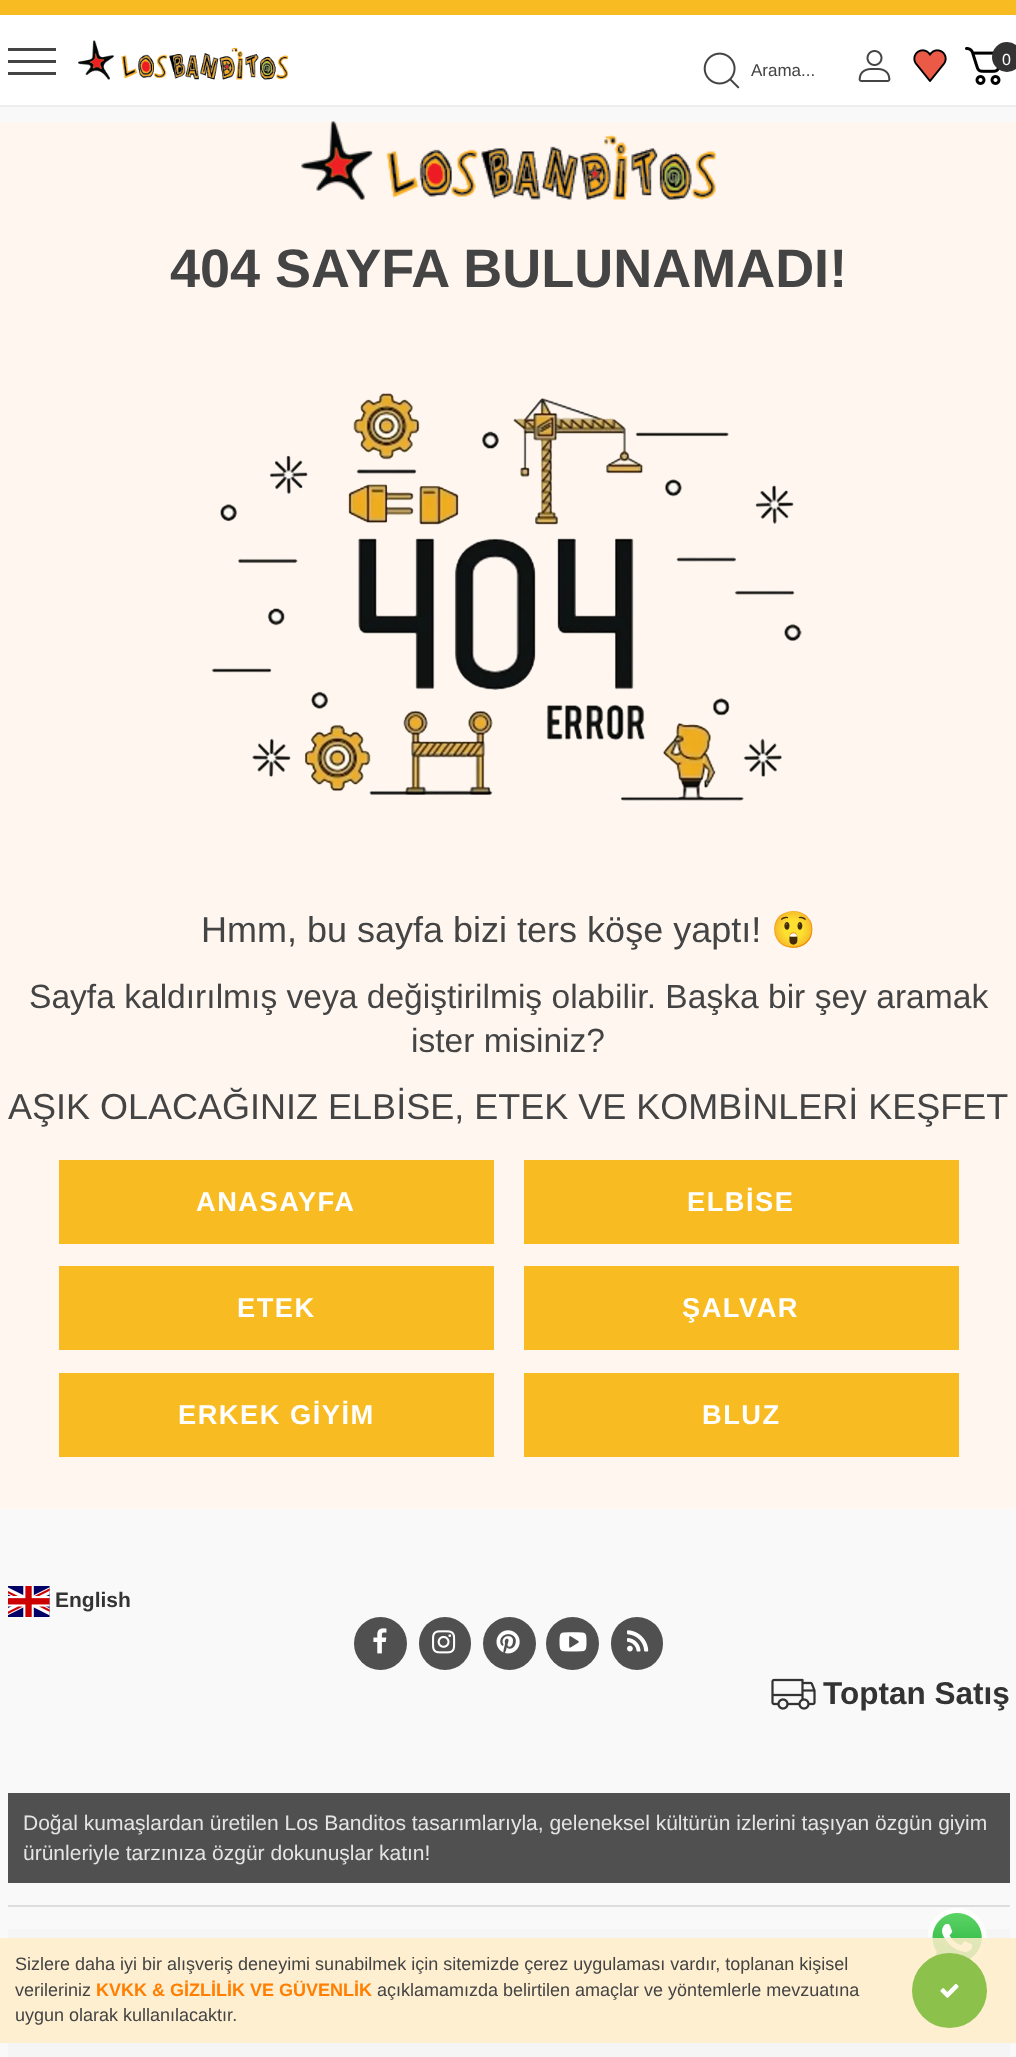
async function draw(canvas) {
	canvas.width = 1016;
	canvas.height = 2057;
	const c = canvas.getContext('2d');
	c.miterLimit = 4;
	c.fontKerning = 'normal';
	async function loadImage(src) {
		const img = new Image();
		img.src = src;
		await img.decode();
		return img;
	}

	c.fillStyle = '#faf9f9';
	c.fillRect(0, 0, 1016, 2057);
	for (const [x, y, w, h, color] of [
		[0, 15, 1016, 90, '#fff'],
		[0, 0, 1016, 15, '#f8bb22'],
		[0, 105, 1016, 2, '#eee'],
	]) {
		c.fillStyle = color;
		c.fillRect(x, y, w, h);
	}
	c.fillStyle = '#444';
	c.beginPath();
	c.moveTo(56, 51);
	c.lineTo(8, 51);
	c.lineTo(8, 48);
	c.lineTo(56, 48);
	c.closePath();
	c.moveTo(56, 75);
	c.lineTo(8, 75);
	c.lineTo(8, 72);
	c.lineTo(56, 72);
	c.closePath();
	c.moveTo(56, 63);
	c.lineTo(8, 63);
	c.lineTo(8, 60);
	c.lineTo(56, 60);
	c.closePath();
	c.fill();
	c.drawImage(await loadImage('img1.png'), 78, 40, 210, 40);
	c.drawImage(await loadImage('img2.png'), 858, 50, 33, 32);
	c.drawImage(await loadImage('img3.png'), 913, 49, 34, 33);
	c.drawImage(await loadImage('img4.png'), 965, 47, 36, 38);
	c.fillStyle = '#333';
	c.beginPath();
	c.arc(1007, 57, 15, 0, 2 * Math.PI);
	c.fill();
	c.font = '16px Liberation Sans';
	c.fillStyle = '#fff';
	c.fillText('0', 1002, 65);
	c.drawImage(await loadImage('img5.png'), 703, 52, 37, 37);
	c.font = '17px Liberation Sans';
	c.fillStyle = '#444';
	c.fillText('Arama...', 751, 76);
	c.fillStyle = '#fff6ef';
	c.fillRect(0, 122, 1016, 1387);
	c.drawImage(await loadImage('img6.png'), 301, 121, 415, 79);
	c.font = 'bold 54px Liberation Sans';
	c.fillStyle = '#444';
	c.fillText('404 SAYFA BULUNAMADI!', 170, 287);
	c.drawImage(await loadImage('img7.png'), 211, 393, 591, 408);
	c.font = '36px Liberation Sans';
	c.fillText('Hmm, bu sayfa bizi ters köşe yaptı!', 201, 942);
	c.font = '36px Noto Color Emoji';
	c.fillText('😲', 771, 942);
	c.font = '33.6px Liberation Sans';
	c.fillText('Sayfa kaldırılmış veya değiştirilmiş olabilir. Başka bir şey aramak', 29, 1008);
	c.fillText('ister misiniz?', 411, 1052);
	c.font = '36px Liberation Sans';
	c.fillText('AŞIK OLACAĞINIZ ELBİSE, ETEK VE KOMBİNLERİ KEŞFET', 8, 1119);
	c.fillStyle = '#f8bb22';
	c.fillRect(59, 1160, 435, 84);
	c.letterSpacing = '1.5px';
	c.font = 'bold 27.25px Liberation Sans';
	c.fillStyle = '#fff';
	c.fillText('ANASAYFA', 196, 1211);
	c.fillStyle = '#f8bb22';
	c.fillRect(524, 1160, 435, 84);
	c.fillStyle = '#fff';
	c.fillText('ELBİSE', 687, 1211);
	c.fillStyle = '#f8bb22';
	c.fillRect(59, 1266, 435, 84);
	c.fillStyle = '#fff';
	c.fillText('ETEK', 237, 1317);
	c.fillStyle = '#f8bb22';
	c.fillRect(524, 1266, 435, 84);
	c.fillStyle = '#fff';
	c.fillText('ŞALVAR', 682, 1317);
	c.fillStyle = '#f8bb22';
	c.fillRect(59, 1373, 435, 84);
	c.fillStyle = '#fff';
	c.fillText('ERKEK GİYİM', 178, 1424);
	c.fillStyle = '#f8bb22';
	c.fillRect(524, 1373, 435, 84);
	c.fillStyle = '#fff';
	c.fillText('BLUZ', 702, 1424);
	c.drawImage(await loadImage('img8.png'), 8, 1586, 42, 31);
	c.letterSpacing = '0px';
	c.font = 'bold 21px Liberation Sans';
	c.fillStyle = '#333';
	c.fillText('English', 55, 1607);
	c.fillStyle = '#505050';
	c.beginPath();
	c.arc(380.5, 1643.5, 26.5, 0, 2 * Math.PI);
	c.fill();
	c.drawImage(await loadImage('img9.png'), 373, 1628, 14, 26);
	c.beginPath();
	c.roundRect(419, 1617, 52, 53, 26);
	c.fill();
	c.drawImage(await loadImage('img10.png'), 432, 1630, 24, 24);
	c.beginPath();
	c.arc(509.5, 1643.5, 26.5, 0, 2 * Math.PI);
	c.fill();
	c.drawImage(await loadImage('img11.png'), 496, 1630, 24, 24);
	c.beginPath();
	c.arc(572.5, 1643.5, 26.5, 0, 2 * Math.PI);
	c.fill();
	c.drawImage(await loadImage('img12.png'), 559, 1632, 28, 20);
	c.beginPath();
	c.roundRect(611, 1617, 52, 53, 26);
	c.fill();
	c.drawImage(await loadImage('img13.png'), 627, 1630, 22, 22);
	c.drawImage(await loadImage('img14.png'), 771, 1678, 45, 32);
	c.font = 'bold 31.5px Liberation Sans';
	c.fillStyle = '#333';
	c.fillText('Toptan Satış', 823, 1704);
	c.fillStyle = '#505050';
	c.fillRect(8, 1793, 1002, 90);
	c.font = '21px Liberation Sans';
	c.fillStyle = '#e4e4e4';
	c.fillText('Doğal kumaşlardan üretilen Los Banditos tasarımlarıyla, geleneksel kültürün izlerini taşıyan özgün giyim', 23, 1830);
	c.fillText('ürünleriyle tarzınıza özgür dokunuşlar katın!', 23, 1860);
	c.fillStyle = '#ddd';
	c.fillRect(8, 1905, 1002, 2);
	c.fillStyle = '#f5f5f5';
	c.fillRect(8, 1929, 1002, 128);
	c.drawImage(await loadImage('img15.png'), 928, 1908, 59, 55);
	c.fillStyle = '#ffedcad9';
	c.fillRect(0, 1938, 1016, 105);
	c.font = '18px Liberation Sans';
	c.fillStyle = '#444';
	c.fillText('Sizlere daha iyi bir alışveriş deneyimi sunabilmek için sitemizde çerez uygulaması vardır, toplanan kişisel', 15, 1970);
	c.fillText('verileriniz', 15, 1996);
	c.font = 'bold 18px Liberation Sans';
	c.fillStyle = '#ff7f00';
	c.fillText('KVKK & GİZLİLİK VE GÜVENLİK', 96, 1996);
	c.font = '18px Liberation Sans';
	c.fillStyle = '#444';
	c.fillText('açıklamamızda belirtilen amaçlar ve yöntemlerle mevzuatına', 377, 1996);
	c.fillText('uygun olarak kullanılacaktır.', 15, 2021);
	c.fillStyle = '#8cc14c';
	c.beginPath();
	c.arc(949.5, 1990.5, 37.5, 0, 2 * Math.PI);
	c.fill();
	c.drawImage(await loadImage('img16.png'), 940, 1983, 19, 15);
}

draw(document.querySelector('canvas'));
